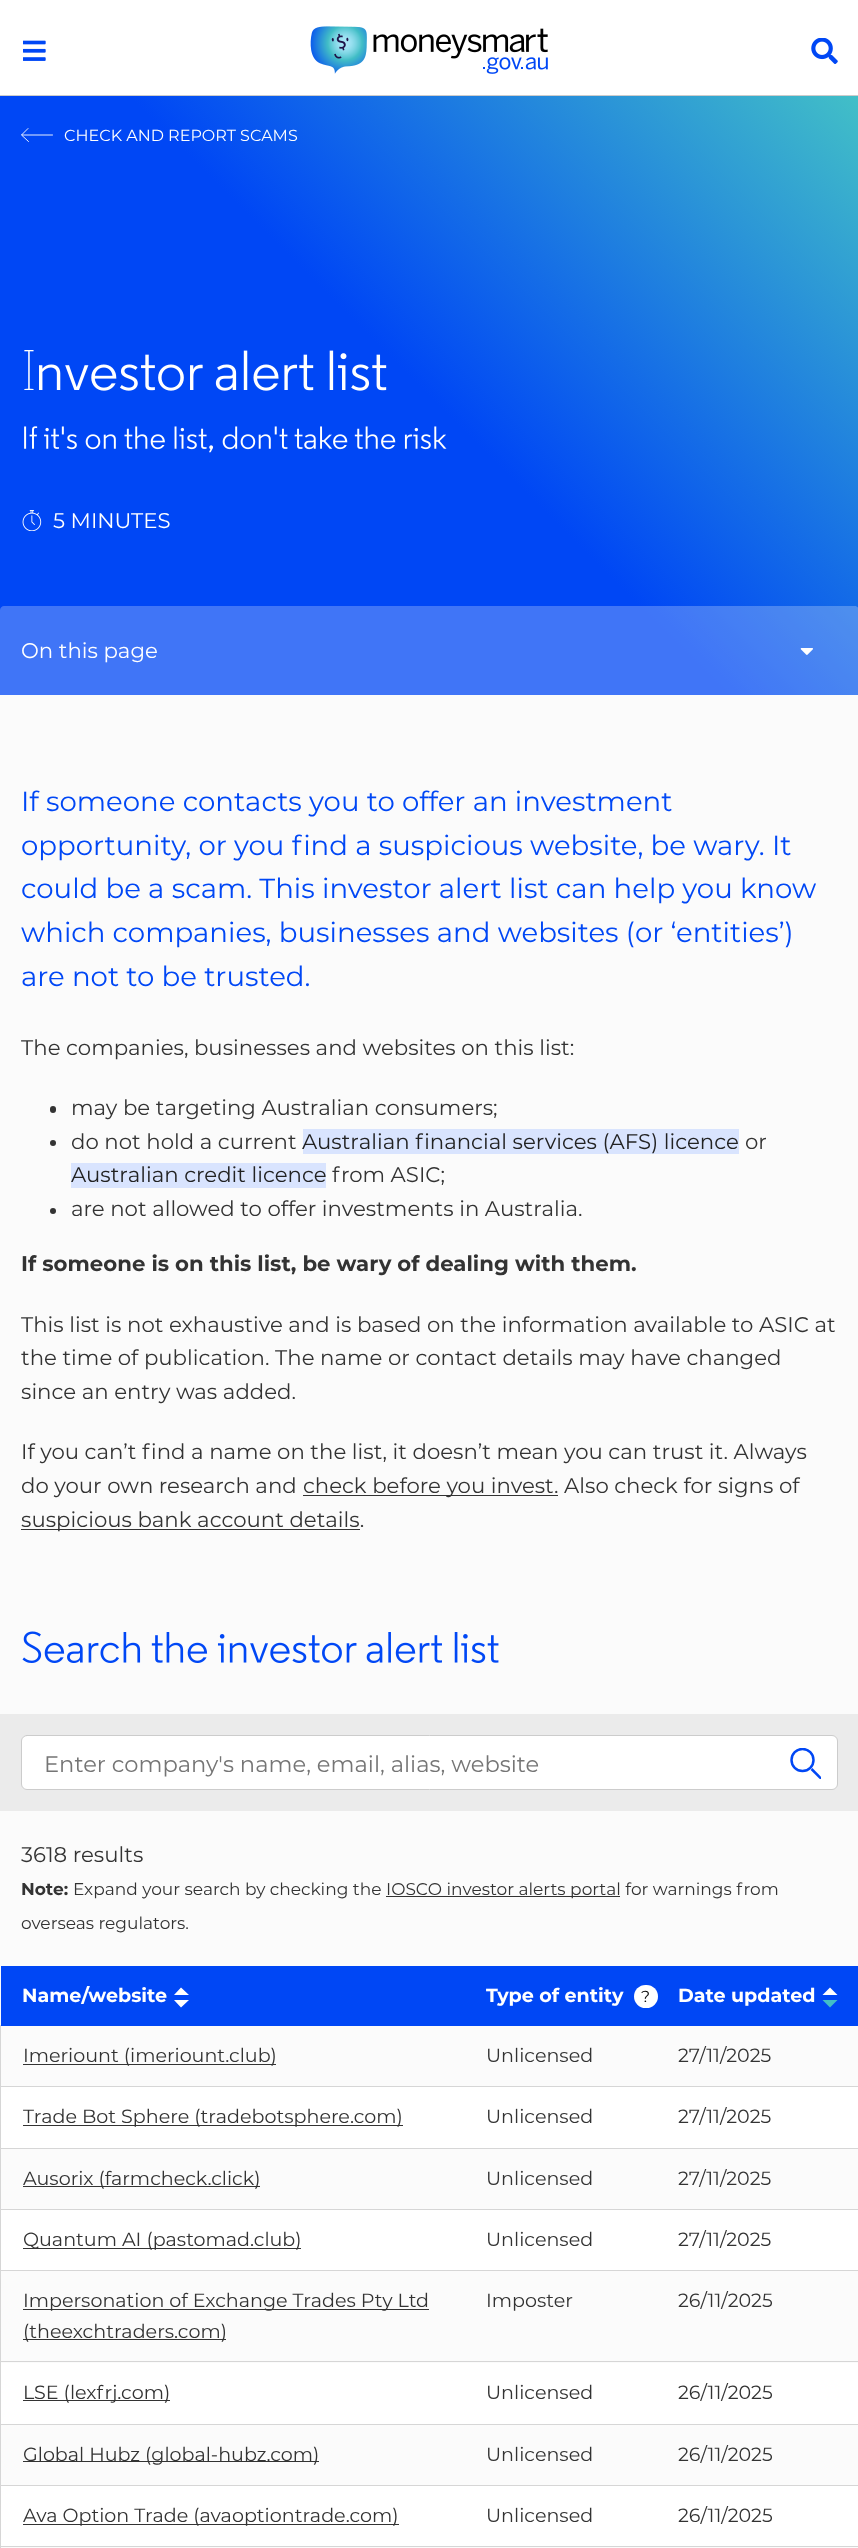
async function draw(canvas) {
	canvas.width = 858;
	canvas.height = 2548;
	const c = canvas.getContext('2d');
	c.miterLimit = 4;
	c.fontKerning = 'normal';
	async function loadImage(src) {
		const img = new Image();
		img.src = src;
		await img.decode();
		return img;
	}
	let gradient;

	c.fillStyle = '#fbfbfb';
	c.fillRect(0, 0, 858, 2548);
	c.fillStyle = '#fff';
	c.fillRect(0, 0, 858, 95);
	c.fillStyle = '#ccc';
	c.fillRect(0, 95, 858, 1);
	c.drawImage(await loadImage('img1.png'), 23, 40, 23, 21);
	c.drawImage(await loadImage('img2.png'), 310, 26, 238, 48);
	c.drawImage(await loadImage('img3.png'), 811, 38, 27, 26);
	gradient = c.createLinearGradient(65, 760, 794, 31);
	gradient.addColorStop(0, '#0047f5');
	gradient.addColorStop(0.5, '#0047f5');
	gradient.addColorStop(1, '#42bfc7');
	c.fillStyle = gradient;
	c.fillRect(0, 96, 858, 599);
	c.font = '16px Montserrat';
	c.fillStyle = '#fff';
	c.fillText('CHECK AND REPORT SCAMS', 64, 141);
	c.beginPath();
	c.moveTo(22, 135);
	c.lineTo(52.5, 135);
	c.strokeStyle = '#fff';
	c.lineWidth = 0.9;
	c.lineCap = 'round';
	c.stroke();
	c.beginPath();
	c.moveTo(28.5, 141.5);
	c.lineTo(21.5, 135);
	c.lineTo(28, 128.5);
	c.lineJoin = 'round';
	c.stroke();
	c.font = '100 56px Noto Sans';
	c.fillText('I', 21, 390);
	c.drawImage(await loadImage('img4.png'), 39, 350, 348, 41);
	c.drawImage(await loadImage('img5.png'), 24, 426, 423, 27);
	c.drawImage(await loadImage('img6.png'), 22, 510, 20, 21);
	c.font = '21.25px Montserrat';
	c.fillText('5 MINUTES', 53, 528);
	c.fillStyle = '#ffffff40';
	c.beginPath();
	c.moveTo(4, 606);
	c.lineTo(855, 606);
	c.bezierCurveTo(857, 606, 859, 608, 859, 610);
	c.lineTo(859, 695);
	c.lineTo(0, 695);
	c.lineTo(0, 610);
	c.bezierCurveTo(0, 608, 2, 606, 4, 606);
	c.closePath();
	c.fill();
	c.drawImage(await loadImage('img7.png'), 800, 648, 13, 7);
	c.fillStyle = '#fff';
	c.fillText('On this page', 21, 658);
	c.font = '27.6px Montserrat';
	c.fillStyle = '#0047f5';
	for (const [text, x, y] of [
		['If someone contacts you to offer an investment', 21, 811],
		['opportunity, or you find a suspicious website, be wary. It', 21, 855],
		['could be a scam. This investor alert list can help you know', 21, 898],
		['which companies, businesses and websites (or ‘entities’)', 21, 942],
		['are not to be trusted.', 21, 986],
	]) {
		c.fillText(text, x, y);
	}
	c.font = '21.25px Montserrat';
	c.fillStyle = '#333';
	c.fillText('The companies, businesses and websites on this list:', 21, 1055);
	c.beginPath();
	c.roundRect(50, 1106, 6, 7, 3);
	c.fill();
	c.fillText('may be targeting Australian consumers;', 71, 1115);
	c.beginPath();
	c.arc(53, 1143, 3, 0, 2 * Math.PI);
	c.fill();
	c.fillText('do not hold a current', 71, 1149);
	c.fillStyle = '#d9e4fe';
	c.fillRect(303, 1129, 436, 25);
	c.fillStyle = '#222';
	c.fillText('Australian financial services (AFS) licence', 302, 1149);
	c.fillStyle = '#333';
	c.fillText('or', 745, 1149);
	c.fillStyle = '#d9e4fe';
	c.fillRect(71, 1163, 255, 25);
	c.fillStyle = '#222';
	c.fillText('Australian credit licence', 71, 1182);
	c.fillStyle = '#333';
	c.fillText('from ASIC;', 332, 1182);
	c.beginPath();
	c.arc(53, 1211, 3, 0, 2 * Math.PI);
	c.fill();
	c.fillText('are not allowed to offer investments in Australia.', 71, 1216);
	c.font = 'bold 21.25px Montserrat';
	c.fillText('If someone is on this list, be wary of dealing with them.', 21, 1271);
	c.font = '21.25px Montserrat';
	for (const [text, x, y] of [
		['This list is not exhaustive and is based on the information available to ASIC at', 21, 1332],
		['the time of publication. The name or contact details may have changed', 21, 1365],
		['since an entry was added.', 21, 1399],
		['If you can’t find a name on the list, it doesn’t mean you can trust it. Always', 21, 1459],
		['do your own research and', 21, 1493],
	]) {
		c.fillText(text, x, y);
	}
	c.fillRect(303, 1495, 255, 1);
	c.fillText('check before you invest. Also check for signs of', 303, 1493);
	c.fillRect(21, 1529, 339, 1);
	c.fillText('suspicious bank account details.', 21, 1527);
	c.drawImage(await loadImage('img8.png'), 22, 1631, 477, 32);
	c.fillStyle = '#ebebeb';
	c.fillRect(0, 1714, 858, 97);
	c.fillStyle = '#fff';
	c.beginPath();
	c.roundRect(21.5, 1735.5, 816, 54, 5.5);
	c.fill();
	c.strokeStyle = '#ccc';
	c.lineWidth = 1;
	c.lineJoin = 'miter';
	c.stroke();
	c.font = '22.6px Montserrat';
	c.fillStyle = '#757575';
	c.fillText('Enter company\'s name, email, alias, website', 44, 1772);
	c.save();
	c.beginPath();
	c.rect(790, 1748, 31, 31);
	c.clip();
	c.beginPath();
	c.arc(802.5, 1760, 11, 0, 2 * Math.PI);
	c.strokeStyle = '#0047f5';
	c.lineWidth = 2.5;
	c.stroke();
	c.beginPath();
	c.moveTo(811.5, 1769);
	c.lineTo(821.5, 1779);
	c.lineCap = 'butt';
	c.stroke();
	c.restore();
	c.font = '21.25px Montserrat';
	c.fillStyle = '#333';
	c.fillText('3618 results', 21, 1862);
	c.font = 'bold 17px Montserrat';
	c.fillText('Note:', 21, 1895);
	c.font = '17px Montserrat';
	c.fillText('Expand your search by checking the', 73, 1895);
	c.fillRect(386, 1896, 234, 1);
	c.fillText('IOSCO investor alerts portal for warnings from', 386, 1895);
	c.fillText('overseas regulators.', 21, 1929);
	c.fillStyle = '#0047f5';
	c.fillRect(1, 1966, 857, 60);
	c.font = 'bold 19.1px Montserrat';
	c.fillStyle = '#fff';
	c.fillText('Name/website', 22, 2002);
	c.beginPath();
	c.moveTo(189, 1995);
	c.lineTo(174, 1995);
	c.lineTo(181, 1987.5);
	c.closePath();
	c.moveTo(174, 2000);
	c.lineTo(189, 2000);
	c.lineTo(181, 2007.5);
	c.closePath();
	c.fill();
	c.fillText('Type of entity', 486, 2002);
	c.beginPath();
	c.roundRect(634, 1985, 24, 23, 11.5);
	c.fill();
	c.font = '16px Montserrat';
	c.fillStyle = '#000';
	c.fillText('?', 641, 2002);
	c.font = 'bold 19.1px Montserrat';
	c.fillStyle = '#fff';
	c.fillText('Date updated', 678, 2002);
	c.beginPath();
	c.moveTo(837.5, 1995);
	c.lineTo(822.5, 1995);
	c.lineTo(830, 1987.5);
	c.closePath();
	c.fill();
	c.fillStyle = '#42bfc7';
	c.beginPath();
	c.moveTo(822.5, 2000);
	c.lineTo(837.5, 2000);
	c.lineTo(830, 2007.5);
	c.closePath();
	c.fill();
	for (const [x, y, w, h, color] of [
		[0, 2546, 858, 1, '#d6d6d6'],
		[0, 2485, 1, 63, '#d6d6d6'],
		[0, 2485, 858, 1, '#d6d6d6'],
		[0, 2424, 1, 62, '#d6d6d6'],
		[0, 2424, 858, 1, '#d6d6d6'],
		[0, 2361, 1, 64, '#d6d6d6'],
		[0, 2361, 858, 1, '#d6d6d6'],
		[0, 2270, 1, 93, '#d6d6d6'],
		[0, 2270, 858, 1, '#d6d6d6'],
		[0, 2209, 1, 62, '#d6d6d6'],
		[0, 2209, 858, 1, '#d6d6d6'],
		[0, 2148, 1, 62, '#d6d6d6'],
		[0, 2148, 858, 1, '#d6d6d6'],
		[0, 2086, 1, 63, '#d6d6d6'],
		[0, 2086, 858, 1, '#d6d6d6'],
		[0, 2025, 1, 63, '#d6d6d6'],
		[23, 2064, 253, 1, '#333'],
	]) {
		c.fillStyle = color;
		c.fillRect(x, y, w, h);
	}
	c.font = '19.1px Montserrat';
	for (const [text, x, y] of [
		['Imeriount (imeriount.club)', 23, 2062],
		['Unlicensed', 486, 2062],
		['27/11/2025', 678, 2062],
	]) {
		c.fillText(text, x, y);
	}
	c.fillStyle = '#fff';
	c.fillRect(1, 2087, 857, 61);
	c.fillStyle = '#333';
	c.fillRect(23, 2125, 380, 1);
	for (const [text, x, y] of [
		['Trade Bot Sphere (tradebotsphere.com)', 23, 2123],
		['Unlicensed', 486, 2123],
		['27/11/2025', 678, 2123],
	]) {
		c.fillText(text, x, y);
	}
	c.fillRect(23, 2186, 237, 1);
	for (const [text, x, y] of [
		['Ausorix (farmcheck.click)', 23, 2185],
		['Unlicensed', 486, 2185],
		['27/11/2025', 678, 2185],
	]) {
		c.fillText(text, x, y);
	}
	c.fillStyle = '#fff';
	c.fillRect(1, 2210, 857, 60);
	c.fillStyle = '#333';
	c.fillRect(23, 2248, 278, 1);
	for (const [text, x, y] of [
		['Quantum AI (pastomad.club)', 23, 2246],
		['Unlicensed', 486, 2246],
		['27/11/2025', 678, 2246],
	]) {
		c.fillText(text, x, y);
	}
	c.fillRect(23, 2309, 406, 1);
	c.fillText('Impersonation of Exchange Trades Pty Ltd', 23, 2307);
	c.fillRect(23, 2339, 203, 1);
	for (const [text, x, y] of [
		['(theexchtraders.com)', 23, 2338],
		['Imposter', 486, 2307],
		['26/11/2025', 678, 2307],
	]) {
		c.fillText(text, x, y);
	}
	c.fillStyle = '#fff';
	c.fillRect(1, 2363, 857, 61);
	c.fillStyle = '#333';
	c.fillRect(23, 2400, 147, 1);
	for (const [text, x, y] of [
		['LSE (lexfrj.com)', 23, 2399],
		['Unlicensed', 486, 2399],
		['26/11/2025', 678, 2399],
	]) {
		c.fillText(text, x, y);
	}
	c.fillRect(23, 2461, 296, 1);
	for (const [text, x, y] of [
		['Global Hubz (global-hubz.com)', 23, 2461],
		['Unlicensed', 486, 2461],
		['26/11/2025', 678, 2461],
	]) {
		c.fillText(text, x, y);
	}
	c.fillStyle = '#fff';
	c.fillRect(1, 2486, 857, 60);
	c.fillStyle = '#333';
	c.fillRect(23, 2524, 376, 1);
	for (const [text, x, y] of [
		['Ava Option Trade (avaoptiontrade.com)', 23, 2522],
		['Unlicensed', 486, 2522],
		['26/11/2025', 678, 2522],
	]) {
		c.fillText(text, x, y);
	}
}

draw(document.querySelector('canvas'));
